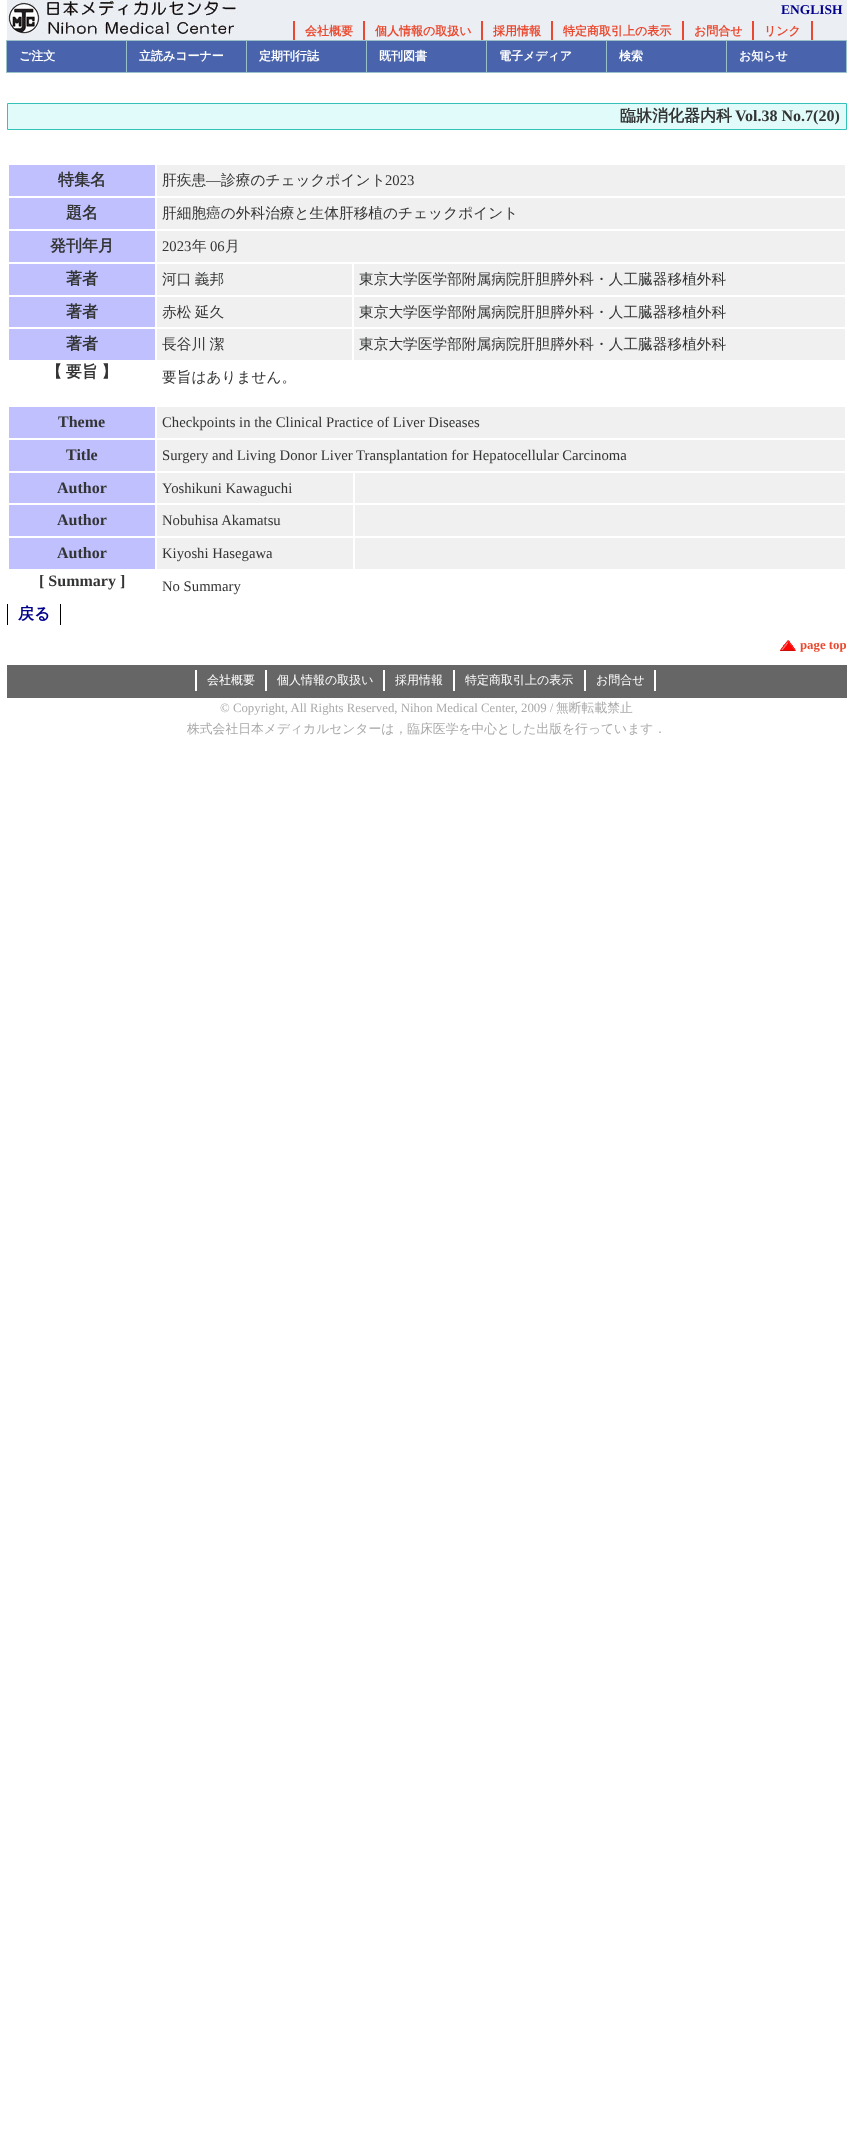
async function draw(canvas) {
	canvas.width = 853;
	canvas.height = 2133;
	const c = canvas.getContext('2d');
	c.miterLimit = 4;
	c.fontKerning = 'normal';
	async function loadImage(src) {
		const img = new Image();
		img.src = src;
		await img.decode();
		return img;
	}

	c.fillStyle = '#fff';
	c.fillRect(0, 0, 853, 2133);
	c.fillStyle = '#ebeef3';
	c.fillRect(7, 0, 840, 40);
	c.drawImage(await loadImage('img1.png'), 7, 0, 232, 36);
	c.font = 'bold 13.5px Liberation Serif';
	c.fillStyle = '#00008b';
	c.fillText('ENGLISH', 781, 14);
	c.fillStyle = '#ea492f';
	c.fillRect(363, 21, 2, 21);
	c.fillRect(293, 21, 2, 21);
	c.font = 'bold 12px WenQuanYi Zen Hei';
	c.fillText('会社概要', 305, 35);
	c.fillRect(481, 21, 2, 21);
	c.fillText('個人情報の取扱い', 375, 35);
	c.fillRect(551, 21, 2, 21);
	c.fillText('採用情報', 493, 35);
	c.fillRect(682, 21, 2, 21);
	c.fillText('特定商取引上の表示', 563, 35);
	c.fillRect(752, 21, 2, 21);
	c.fillText('お問合せ', 694, 35);
	c.fillRect(811, 21, 2, 21);
	c.fillText('リンク', 764, 35);
	c.fillStyle = '#4964ac';
	c.beginPath();
	c.rect(6.5, 40.5, 120, 32);
	c.fill();
	c.strokeStyle = '#9ac1c9';
	c.stroke();
	c.fillStyle = '#fff';
	c.fillText('ご注文', 19, 60);
	c.fillStyle = '#4964ac';
	c.beginPath();
	c.rect(126.5, 40.5, 120, 32);
	c.fill();
	c.stroke();
	c.fillStyle = '#fff';
	c.fillText('立読みコーナー', 139, 60);
	c.fillStyle = '#4964ac';
	c.beginPath();
	c.rect(246.5, 40.5, 120, 32);
	c.fill();
	c.stroke();
	c.fillStyle = '#fff';
	c.fillText('定期刊行誌', 259, 60);
	c.fillStyle = '#4964ac';
	c.beginPath();
	c.rect(366.5, 40.5, 120, 32);
	c.fill();
	c.stroke();
	c.fillStyle = '#fff';
	c.fillText('既刊図書', 379, 60);
	c.fillStyle = '#4964ac';
	c.beginPath();
	c.rect(486.5, 40.5, 120, 32);
	c.fill();
	c.stroke();
	c.fillStyle = '#fff';
	c.fillText('電子メディア', 499, 60);
	c.fillStyle = '#4964ac';
	c.beginPath();
	c.rect(606.5, 40.5, 120, 32);
	c.fill();
	c.stroke();
	c.fillStyle = '#fff';
	c.fillText('検索', 619, 60);
	c.fillStyle = '#4964ac';
	c.beginPath();
	c.rect(726.5, 40.5, 120, 32);
	c.fill();
	c.stroke();
	c.fillStyle = '#fff';
	c.fillText('お知らせ', 739, 60);
	c.fillStyle = '#e0fbf9';
	c.beginPath();
	c.rect(7.5, 103.5, 839, 26);
	c.fill();
	c.strokeStyle = '#32c2b8';
	c.stroke();
	c.font = 'bold 16px WenQuanYi Zen Hei';
	c.fillStyle = '#333434';
	c.fillText('臨牀消化器内科', 620, 121);
	c.font = 'bold 16px Liberation Serif';
	c.fillText('Vol.38 No.7(20)', 735, 121);
	c.fillStyle = '#c0c0ff';
	c.fillRect(9, 165, 146, 31);
	c.font = 'bold 16px WenQuanYi Zen Hei';
	c.fillStyle = '#333434';
	c.fillText('特集名', 58, 185);
	c.fillStyle = '#f0f0f0';
	c.fillRect(157, 165, 688, 31);
	c.font = '500 14.7px WenQuanYi Zen Hei';
	c.fillStyle = '#333434';
	c.fillText('肝疾患', 162, 185);
	c.font = '14.7px Liberation Serif';
	c.fillText('―', 206, 185);
	c.font = '500 14.7px WenQuanYi Zen Hei';
	c.fillText('診療のチェックポイント', 221, 185);
	c.font = '14.7px Liberation Serif';
	c.fillText('2023', 385, 185);
	c.fillStyle = '#c0c0ff';
	c.fillRect(9, 198, 146, 31);
	c.font = 'bold 16px WenQuanYi Zen Hei';
	c.fillStyle = '#333434';
	c.fillText('題名', 66, 218);
	c.fillStyle = '#f0f0f0';
	c.fillRect(157, 198, 688, 31);
	c.font = '500 14.7px WenQuanYi Zen Hei';
	c.fillStyle = '#333434';
	c.fillText('肝細胞癌の外科治療と生体肝移植のチェックポイント', 162, 218);
	c.fillStyle = '#c0c0ff';
	c.fillRect(9, 231, 146, 31);
	c.font = 'bold 16px WenQuanYi Zen Hei';
	c.fillStyle = '#333434';
	c.fillText('発刊年月', 50, 251);
	c.fillStyle = '#f0f0f0';
	c.fillRect(157, 231, 688, 31);
	c.font = '14.7px Liberation Serif';
	c.fillStyle = '#333434';
	c.fillText('2023', 162, 251);
	c.font = '500 14.7px WenQuanYi Zen Hei';
	c.fillText('年', 192, 251);
	c.font = '14.7px Liberation Serif';
	c.fillText('06', 210, 251);
	c.font = '500 14.7px WenQuanYi Zen Hei';
	c.fillText('月', 225, 251);
	c.fillStyle = '#c0c0ff';
	c.fillRect(9, 264, 146, 31);
	c.font = 'bold 16px WenQuanYi Zen Hei';
	c.fillStyle = '#333434';
	c.fillText('著者', 66, 284);
	c.fillStyle = '#f0f0f0';
	c.fillRect(157, 264, 195, 31);
	c.wordSpacing = '-1px';
	c.font = '500 14.7px WenQuanYi Zen Hei';
	c.fillStyle = '#333434';
	c.fillText('河口 義邦', 162, 284);
	c.fillStyle = '#f0f0f0';
	c.fillRect(354, 264, 491, 31);
	c.wordSpacing = '0px';
	c.fillStyle = '#333434';
	c.fillText('東京大学医学部附属病院肝胆膵外科・人工臓器移植外科', 359, 284);
	c.fillStyle = '#c0c0ff';
	c.fillRect(9, 297, 146, 30);
	c.font = 'bold 16px WenQuanYi Zen Hei';
	c.fillStyle = '#333434';
	c.fillText('著者', 66, 317);
	c.fillStyle = '#f0f0f0';
	c.fillRect(157, 297, 195, 30);
	c.wordSpacing = '-1px';
	c.font = '500 14.7px WenQuanYi Zen Hei';
	c.fillStyle = '#333434';
	c.fillText('赤松 延久', 162, 317);
	c.fillStyle = '#f0f0f0';
	c.fillRect(354, 297, 491, 30);
	c.wordSpacing = '0px';
	c.fillStyle = '#333434';
	c.fillText('東京大学医学部附属病院肝胆膵外科・人工臓器移植外科', 359, 317);
	c.fillStyle = '#c0c0ff';
	c.fillRect(9, 329, 146, 31);
	c.font = 'bold 16px WenQuanYi Zen Hei';
	c.fillStyle = '#333434';
	c.fillText('著者', 66, 349);
	c.fillStyle = '#f0f0f0';
	c.fillRect(157, 329, 195, 31);
	c.wordSpacing = '-1px';
	c.font = '500 14.7px WenQuanYi Zen Hei';
	c.fillStyle = '#333434';
	c.fillText('長谷川 潔', 162, 349);
	c.fillStyle = '#f0f0f0';
	c.fillRect(354, 329, 491, 31);
	c.wordSpacing = '0px';
	c.fillStyle = '#333434';
	c.fillText('東京大学医学部附属病院肝胆膵外科・人工臓器移植外科', 359, 349);
	c.wordSpacing = '-1px';
	c.font = 'bold 16px WenQuanYi Zen Hei';
	c.fillText('【 要旨 】', 46, 377);
	c.wordSpacing = '0px';
	c.font = '500 14.7px WenQuanYi Zen Hei';
	c.fillText('要旨はありません。', 162, 382);
	c.fillStyle = '#c0c0ff';
	c.fillRect(9, 407, 146, 31);
	c.font = 'bold 16px Liberation Serif';
	c.fillStyle = '#333434';
	c.fillText('Theme', 58, 427);
	c.fillStyle = '#f0f0f0';
	c.fillRect(157, 407, 688, 31);
	c.font = '14.7px Liberation Serif';
	c.fillStyle = '#333434';
	c.fillText('Checkpoints in the Clinical Practice of Liver Diseases', 162, 427);
	c.fillStyle = '#c0c0ff';
	c.fillRect(9, 440, 146, 31);
	c.font = 'bold 16px Liberation Serif';
	c.fillStyle = '#333434';
	c.fillText('Title', 66, 460);
	c.fillStyle = '#f0f0f0';
	c.fillRect(157, 440, 688, 31);
	c.font = '14.7px Liberation Serif';
	c.fillStyle = '#333434';
	c.fillText('Surgery and Living Donor Liver Transplantation for Hepatocellular Carcinoma', 162, 460);
	c.fillStyle = '#c0c0ff';
	c.fillRect(9, 473, 146, 30);
	c.font = 'bold 16px Liberation Serif';
	c.fillStyle = '#333434';
	c.fillText('Author', 57, 493);
	c.fillStyle = '#f0f0f0';
	c.fillRect(157, 473, 196, 30);
	c.font = '14.7px Liberation Serif';
	c.fillStyle = '#333434';
	c.fillText('Yoshikuni Kawaguchi', 162, 493);
	c.fillStyle = '#f0f0f0';
	c.fillRect(355, 473, 490, 30);
	c.fillStyle = '#c0c0ff';
	c.fillRect(9, 505, 146, 31);
	c.font = 'bold 16px Liberation Serif';
	c.fillStyle = '#333434';
	c.fillText('Author', 57, 525);
	c.fillStyle = '#f0f0f0';
	c.fillRect(157, 505, 196, 31);
	c.font = '14.7px Liberation Serif';
	c.fillStyle = '#333434';
	c.fillText('Nobuhisa Akamatsu', 162, 525);
	c.fillStyle = '#f0f0f0';
	c.fillRect(355, 505, 490, 31);
	c.fillStyle = '#c0c0ff';
	c.fillRect(9, 538, 146, 31);
	c.font = 'bold 16px Liberation Serif';
	c.fillStyle = '#333434';
	c.fillText('Author', 57, 558);
	c.fillStyle = '#f0f0f0';
	c.fillRect(157, 538, 196, 31);
	c.font = '14.7px Liberation Serif';
	c.fillStyle = '#333434';
	c.fillText('Kiyoshi Hasegawa', 162, 558);
	c.fillStyle = '#f0f0f0';
	c.fillRect(355, 538, 490, 31);
	c.font = 'bold 16px Liberation Serif';
	c.fillStyle = '#333434';
	c.fillText('[ Summary ]', 39, 586);
	c.font = '14.7px Liberation Serif';
	c.fillText('No Summary', 162, 591);
	c.fillStyle = '#000';
	c.fillRect(60, 604, 1, 21);
	c.fillRect(7, 604, 1, 21);
	c.font = 'bold 16px WenQuanYi Zen Hei';
	c.fillStyle = '#00008b';
	c.fillText('戻る', 18, 619);
	c.drawImage(await loadImage('img2.png'), 780, 640, 16, 11);
	c.font = 'bold 12.8px Liberation Serif';
	c.fillStyle = '#ea492f';
	c.fillText('page top', 800, 649);
	for (const [x, y, w, h, color] of [
		[7, 665, 840, 33, '#666'],
		[265, 670, 2, 21, '#fff'],
		[195, 670, 2, 21, '#fff'],
	]) {
		c.fillStyle = color;
		c.fillRect(x, y, w, h);
	}
	c.font = '500 12px WenQuanYi Zen Hei';
	c.fillText('会社概要', 207, 684);
	c.fillRect(383, 670, 2, 21);
	c.fillText('個人情報の取扱い', 277, 684);
	c.fillRect(453, 670, 2, 21);
	c.fillText('採用情報', 395, 684);
	c.fillRect(584, 670, 2, 21);
	c.fillText('特定商取引上の表示', 465, 684);
	c.fillRect(654, 670, 2, 21);
	c.fillText('お問合せ', 596, 684);
	c.font = '12.8px Liberation Serif';
	c.fillStyle = '#aaa';
	c.fillText('© Copyright, All Rights Reserved, Nihon Medical Center, 2009 /', 220, 712);
	c.font = '500 12.8px WenQuanYi Zen Hei';
	c.fillText('無断転載禁止', 556, 712);
	c.fillText('株式会社日本メディカルセンターは，臨床医学を中心とした出版を行っています．', 187, 733);
}

draw(document.querySelector('canvas'));
